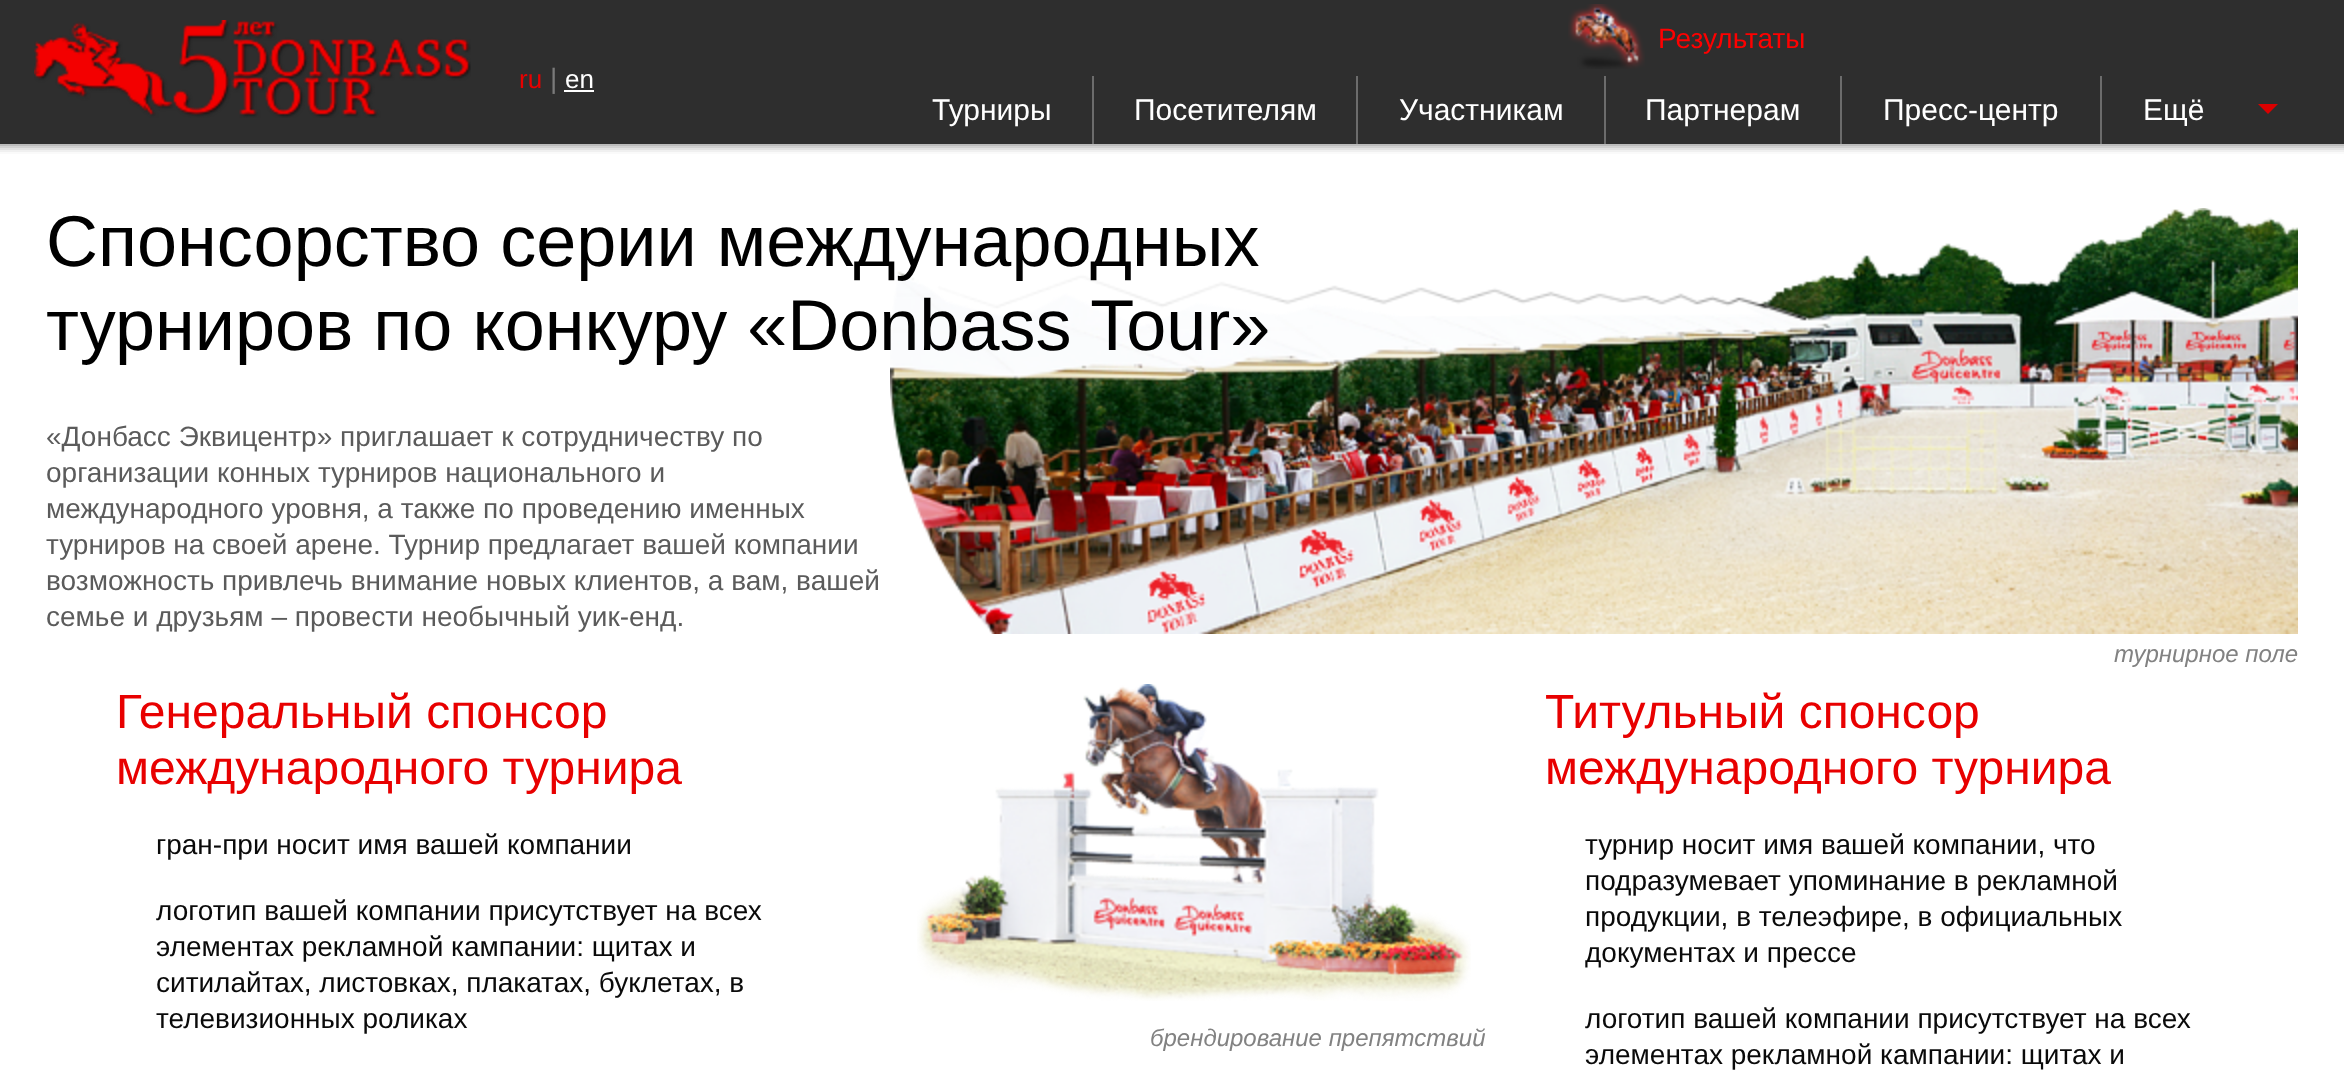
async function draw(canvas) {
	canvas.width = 2344;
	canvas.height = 1085;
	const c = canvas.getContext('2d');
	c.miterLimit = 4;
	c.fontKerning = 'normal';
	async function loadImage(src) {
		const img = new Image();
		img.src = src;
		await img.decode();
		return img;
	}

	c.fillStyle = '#fff';
	c.fillRect(0, 0, 2344, 1085);
	for (const [x, y, w, h, color] of [
		[0, 152, 2344, 2, '#fafafa'],
		[0, 150, 2344, 2, '#f0f0f0'],
		[0, 148, 2344, 2, '#e1e1e1'],
		[0, 146, 2344, 2, '#d0d0d0'],
		[0, 0, 2344, 144, '#2e2e2e'],
	]) {
		c.fillStyle = color;
		c.fillRect(x, y, w, h);
	}
	c.drawImage(await loadImage('img1.png'), 34, 20, 437, 98);
	c.font = '26px Liberation Sans';
	c.fillStyle = '#e80000';
	c.fillText('ru', 519, 88);
	c.font = '28px Liberation Sans';
	c.fillStyle = '#7a7a7a';
	c.fillText('|', 550, 88);
	c.font = '26px Liberation Sans';
	c.fillStyle = '#fff';
	c.fillText('en', 565, 88);
	c.fillRect(564, 90, 30, 2);
	c.drawImage(await loadImage('img2.png'), 1568, 4, 77, 65);
	c.font = '28px Liberation Sans';
	c.fillStyle = '#f00';
	c.fillText('Результаты', 1658, 48);
	c.fillStyle = '#6c6c6c';
	c.fillRect(1092, 76, 2, 68);
	c.font = '30px Liberation Sans';
	c.fillStyle = '#fff';
	c.fillText('Турниры', 932, 120);
	c.fillStyle = '#6c6c6c';
	c.fillRect(1356, 76, 2, 68);
	c.fillStyle = '#fff';
	c.fillText('Посетителям', 1134, 120);
	c.fillStyle = '#6c6c6c';
	c.fillRect(1604, 76, 2, 68);
	c.fillStyle = '#fff';
	c.fillText('Участникам', 1399, 120);
	c.fillStyle = '#6c6c6c';
	c.fillRect(1840, 76, 2, 68);
	c.fillStyle = '#fff';
	c.fillText('Партнерам', 1645, 120);
	c.fillStyle = '#6c6c6c';
	c.fillRect(2100, 76, 2, 68);
	c.fillStyle = '#fff';
	c.fillText('Пресс-центр', 1883, 120);
	c.fillText('Ещё', 2143, 120);
	c.fillStyle = '#db0000';
	c.beginPath();
	c.moveTo(2258, 104);
	c.lineTo(2278, 104);
	c.lineTo(2268, 114);
	c.closePath();
	c.fill();
	c.fillStyle = '#bbb';
	c.fillRect(0, 144, 2344, 2);
	c.drawImage(await loadImage('img3.png'), 890, 208, 1408, 426);
	c.font = '72px Liberation Sans';
	c.fillStyle = '#000';
	c.fillText('Спонсорство серии международных', 46, 266);
	c.fillText('турниров по конкуру «Donbass Tour»', 46, 350);
	c.font = '28px Liberation Sans';
	c.fillStyle = '#5b5b5b';
	for (const [text, x, y] of [
		['«Донбасс Эквицентр» приглашает к сотрудничеству по', 46, 446],
		['организации конных турниров национального и', 46, 482],
		['международного уровня, а также по проведению именных', 46, 518],
		['турниров на своей арене. Турнир предлагает вашей компании', 46, 554],
		['возможность привлечь внимание новых клиентов, а вам, вашей', 46, 590],
		['семье и друзьям – провести необычный уик-енд.', 46, 626],
	]) {
		c.fillText(text, x, y);
	}
	c.font = 'italic 24px Liberation Sans';
	c.fillStyle = '#828282';
	c.fillText('турнирное поле', 2114, 662);
	c.font = '48px Liberation Sans';
	c.fillStyle = '#e80000';
	c.fillText('Генеральный спонсор', 116, 728);
	c.fillText('международного турнира', 116, 784);
	c.font = '28px Liberation Sans';
	c.fillStyle = '#0a0a0a';
	for (const [text, x, y] of [
		['гран-при носит имя вашей компании', 156, 854],
		['логотип вашей компании присутствует на всех', 156, 920],
		['элементах рекламной кампании: щитах и', 156, 956],
		['ситилайтах, листовках, плакатах, буклетах, в', 156, 992],
		['телевизионных роликах', 156, 1028],
	]) {
		c.fillText(text, x, y);
	}
	c.drawImage(await loadImage('img4.png'), 917, 684, 554, 317);
	c.font = 'italic 24px Liberation Sans';
	c.fillStyle = '#828282';
	c.fillText('брендирование препятствий', 1150, 1046);
	c.font = '48px Liberation Sans';
	c.fillStyle = '#e80000';
	c.fillText('Титульный спонсор', 1545, 728);
	c.fillText('международного турнира', 1545, 784);
	c.font = '28px Liberation Sans';
	c.fillStyle = '#0a0a0a';
	for (const [text, x, y] of [
		['турнир носит имя вашей компании, что', 1585, 854],
		['подразумевает упоминание в рекламной', 1585, 890],
		['продукции, в телеэфире, в официальных', 1585, 926],
		['документах и прессе', 1585, 962],
		['логотип вашей компании присутствует на всех', 1585, 1028],
		['элементах рекламной кампании: щитах и', 1585, 1064],
	]) {
		c.fillText(text, x, y);
	}
}

draw(document.querySelector('canvas'));
